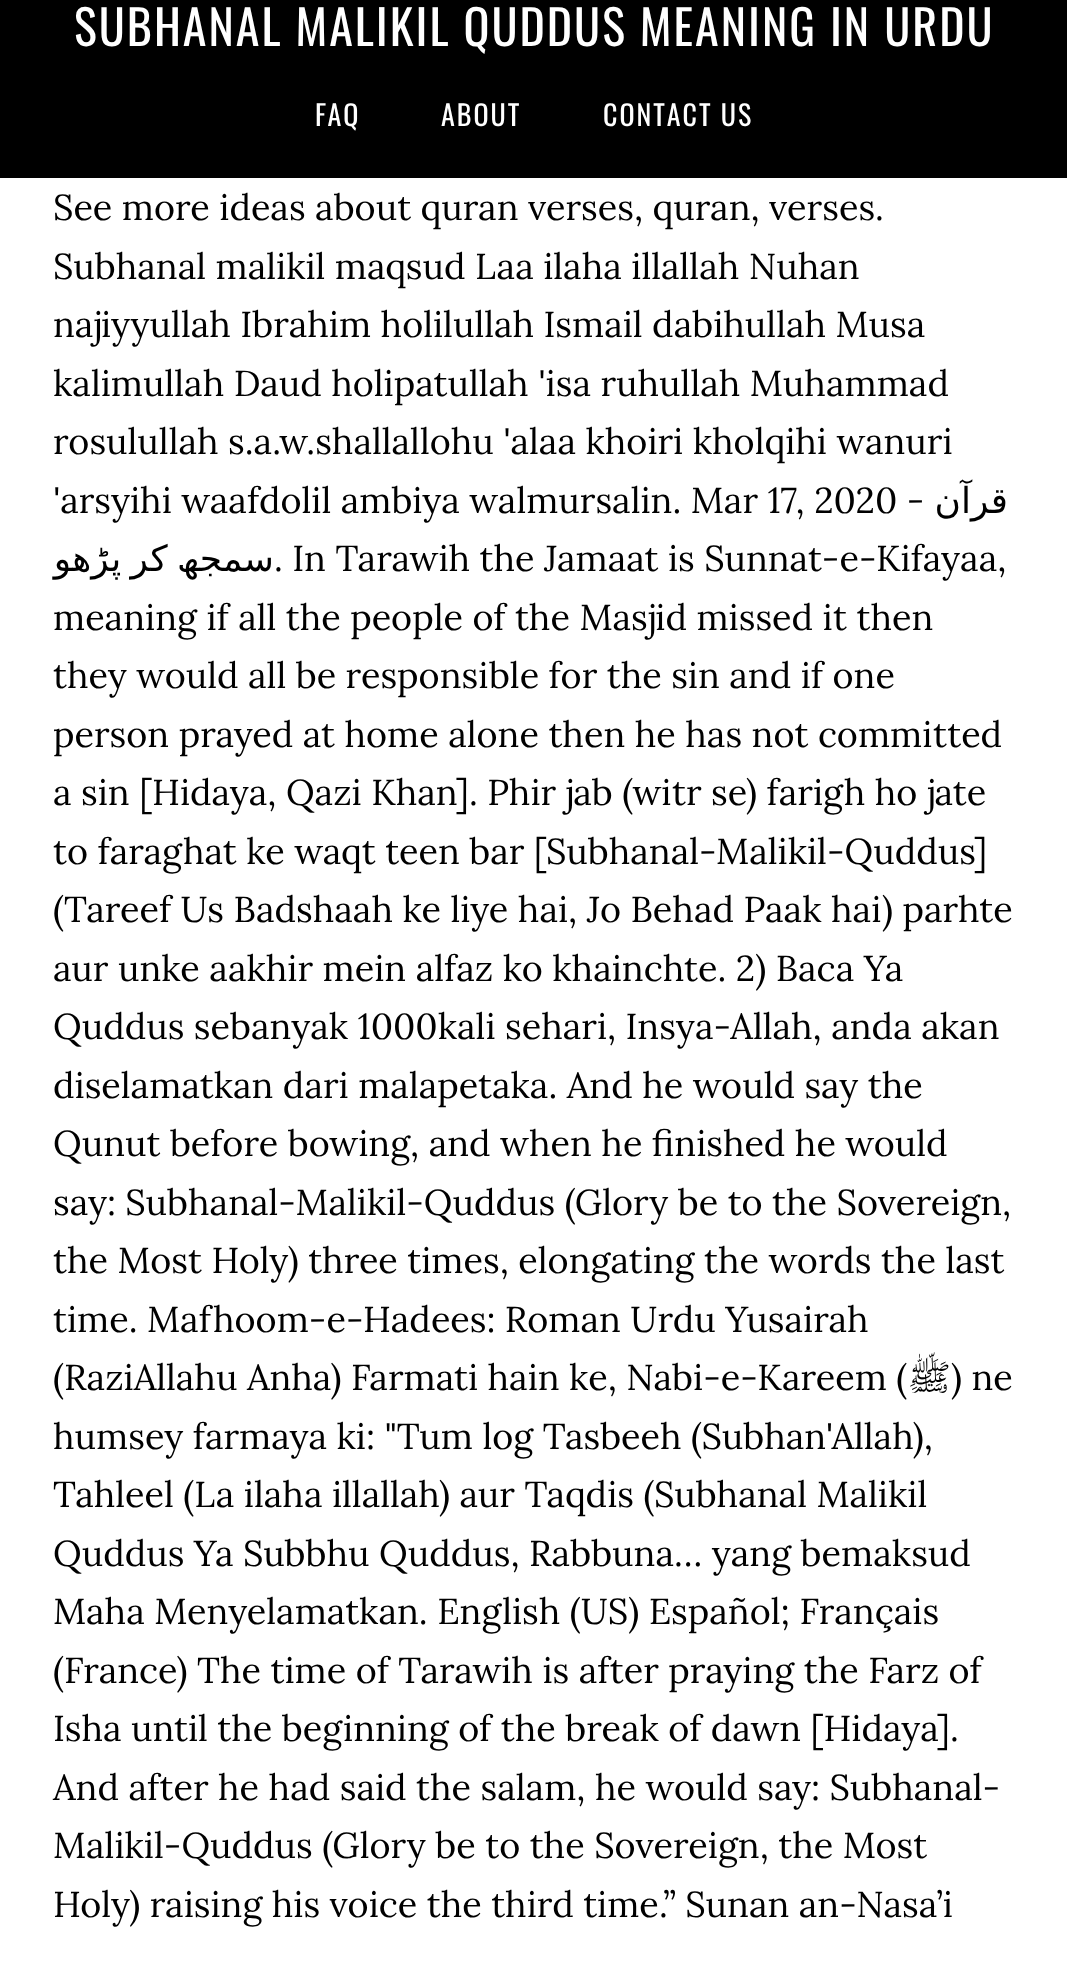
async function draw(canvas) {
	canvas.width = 1067;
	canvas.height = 1962;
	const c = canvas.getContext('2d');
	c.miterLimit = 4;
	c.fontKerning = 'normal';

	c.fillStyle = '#fff';
	c.fillRect(0, 0, 1067, 1962);
	c.fillStyle = '#000';
	c.fillRect(0, 0, 1067, 178);
	c.letterSpacing = '2px';
	c.font = '48px Oswald';
	c.fillStyle = '#fff';
	c.fillText('SUBHANAL MALIKIL QUDDUS MEANING IN URDU', 74, 46);
	c.font = '28px Oswald';
	for (const [text, x, y] of [
		['FAQ', 315, 126],
		['ABOUT', 441, 126],
		['CONTACT US', 603, 126],
	]) {
		c.fillText(text, x, y);
	}
	c.letterSpacing = '0px';
	c.font = '36px Lora';
	c.fillStyle = '#000';
	for (const [text, x, y] of [
		['See more ideas about quran verses, quran, verses.', 53, 220],
		['Subhanal malikil maqsud Laa ilaha illallah Nuhan', 53, 279],
		['najiyyullah Ibrahim holilullah Ismail dabihullah Musa', 53, 337],
		['kalimullah Daud holipatullah \'isa ruhullah Muhammad', 53, 396],
		['rosulullah s.a.w.shallallohu \'alaa khoiri kholqihi wanuri', 53, 454],
		['\'arsyihi waafdolil ambiya walmursalin. Mar 17, 2020 -', 53, 513],
	]) {
		c.fillText(text, x, y);
	}
	c.direction = 'rtl';
	c.font = '36px DejaVu Sans';
	c.fillText('قرآن', 1008, 513);
	c.wordSpacing = '-2px';
	c.fillText('سمجھ کر پڑھو', 274, 571);
	c.wordSpacing = '0px';
	c.direction = 'ltr';
	c.font = '36px Lora';
	for (const [text, x, y] of [
		['. In Tarawih the Jamaat is Sunnat-e-Kifayaa,', 274, 571],
		['meaning if all the people of the Masjid missed it then', 53, 630],
		['they would all be responsible for the sin and if one', 53, 688],
		['person prayed at home alone then he has not committed', 53, 747],
		['a sin [Hidaya, Qazi Khan]. Phir jab (witr se) farigh ho jate', 53, 805],
		['to faraghat ke waqt teen bar [Subhanal-Malikil-Quddus]', 53, 864],
		['(Tareef Us Badshaah ke liye hai, Jo Behad Paak hai) parhte', 53, 922],
		['aur unke aakhir mein alfaz ko khainchte. 2) Baca Ya', 53, 981],
		['Quddus sebanyak 1000kali sehari, Insya-Allah, anda akan', 53, 1039],
		['diselamatkan dari malapetaka. And he would say the', 53, 1098],
		['Qunut before bowing, and when he finished he would', 53, 1156],
		['say: Subhanal-Malikil-Quddus (Glory be to the Sovereign,', 53, 1215],
		['the Most Holy) three times, elongating the words the last', 53, 1273],
		['time. Mafhoom-e-Hadees: Roman Urdu Yusairah', 53, 1332],
		['(RaziAllahu Anha) Farmati hain ke, Nabi-e-Kareem (', 53, 1390],
	]) {
		c.fillText(text, x, y);
	}
	c.direction = 'rtl';
	c.font = '36px Lateef';
	c.fillText('ﷺ', 951, 1390);
	c.direction = 'ltr';
	c.font = '36px Lora';
	for (const [text, x, y] of [
		[') ne', 951, 1390],
		['humsey farmaya ki: "Tum log Tasbeeh (Subhan\'Allah),', 53, 1449],
		['Tahleel (La ilaha illallah) aur Taqdis (Subhanal Malikil', 53, 1507],
		['Quddus Ya Subbhu Quddus, Rabbuna… yang bemaksud', 53, 1566],
		['Maha Menyelamatkan. English (US) Español; Français', 53, 1624],
		['(France) The time of Tarawih is after praying the Farz of', 53, 1683],
		['Isha until the beginning of the break of dawn [Hidaya].', 53, 1741],
		['And after he had said the salam, he would say: Subhanal-', 53, 1800],
		['Malikil-Quddus (Glory be to the Sovereign, the Most', 53, 1858],
		['Holy) raising his voice the third time.” Sunan an-Nasa’i', 53, 1917],
	]) {
		c.fillText(text, x, y);
	}
}

draw(document.querySelector('canvas'));
